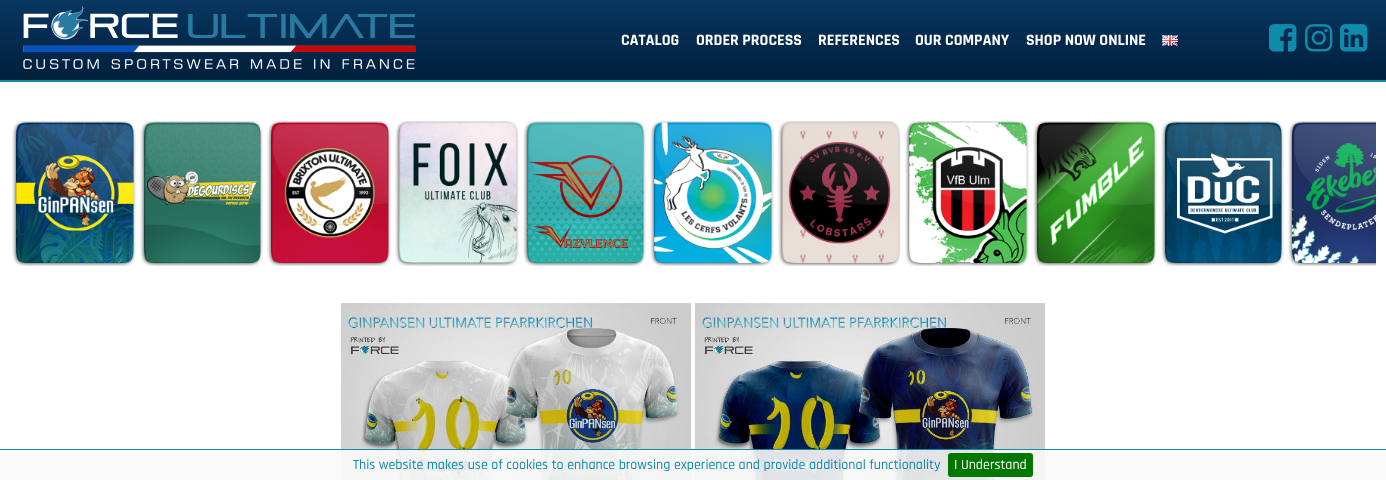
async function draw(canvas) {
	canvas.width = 1386;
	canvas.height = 480;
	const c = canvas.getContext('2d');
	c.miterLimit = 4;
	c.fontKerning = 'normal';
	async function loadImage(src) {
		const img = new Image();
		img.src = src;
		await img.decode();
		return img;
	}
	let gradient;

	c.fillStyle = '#fff';
	c.fillRect(0, 0, 1386, 480);
	c.fillStyle = '#0f8bac';
	c.fillRect(0, 80, 1386, 2);
	gradient = c.createLinearGradient(693, 0, 693, 80);
	gradient.addColorStop(0, '#083660');
	gradient.addColorStop(1, '#001f3c');
	c.fillStyle = gradient;
	c.fillRect(0, 0, 1386, 80);
	c.drawImage(await loadImage('img1.png'), 23, 6, 393, 63);
	c.font = 'bold 16px Rajdhani';
	c.fillStyle = '#fff';
	for (const [text, x, y] of [
		['CATALOG', 621, 45],
		['ORDER PROCESS', 696, 45],
		['REFERENCES', 818, 45],
		['OUR COMPANY', 915, 45],
		['SHOP NOW ONLINE', 1026, 45],
	]) {
		c.fillText(text, x, y);
	}
	c.drawImage(await loadImage('img2.png'), 1162, 35, 16, 11);
	c.drawImage(await loadImage('img3.png'), 1269, 24, 28, 28);
	c.drawImage(await loadImage('img4.png'), 1305, 24, 28, 28);
	c.drawImage(await loadImage('img5.png'), 1340, 24, 28, 28);
	c.drawImage(await loadImage('img6.png'), 12, 121, 124, 145);
	c.drawImage(await loadImage('img7.png'), 140, 121, 123, 145);
	c.drawImage(await loadImage('img8.png'), 267, 121, 124, 145);
	c.drawImage(await loadImage('img9.png'), 395, 121, 124, 145);
	c.drawImage(await loadImage('img10.png'), 523, 121, 123, 145);
	c.drawImage(await loadImage('img11.png'), 650, 121, 124, 145);
	c.drawImage(await loadImage('img12.png'), 778, 121, 123, 145);
	c.drawImage(await loadImage('img13.png'), 905, 121, 124, 145);
	c.drawImage(await loadImage('img14.png'), 1033, 121, 124, 145);
	c.drawImage(await loadImage('img15.png'), 1161, 121, 123, 145);
	c.drawImage(await loadImage('img16.png'), 1288, 121, 88, 145);
	c.drawImage(await loadImage('img17.png'), 341, 303, 350, 177);
	c.drawImage(await loadImage('img18.png'), 695, 303, 350, 177);
	c.fillStyle = '#f9f9f9e6';
	c.fillRect(0, 450, 1386, 30);
	c.fillStyle = '#0f8bac';
	c.fillRect(0, 449, 1386, 1);
	c.font = '500 14px Rajdhani';
	c.fillText('This website makes use of cookies to enhance browsing experience and provide additional functionality', 353, 469);
	c.fillStyle = '#070';
	c.beginPath();
	c.roundRect(948, 453, 85, 24, 3);
	c.fill();
	c.fillStyle = '#fff';
	c.fillText('I Understand', 954, 469);
}

draw(document.querySelector('canvas'));
